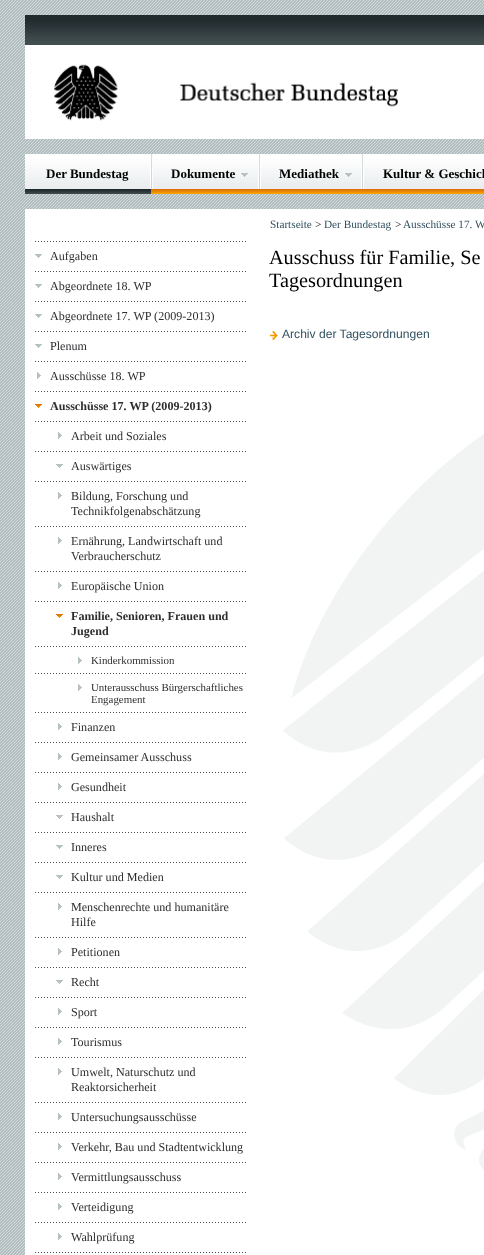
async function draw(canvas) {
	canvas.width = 484;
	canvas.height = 1255;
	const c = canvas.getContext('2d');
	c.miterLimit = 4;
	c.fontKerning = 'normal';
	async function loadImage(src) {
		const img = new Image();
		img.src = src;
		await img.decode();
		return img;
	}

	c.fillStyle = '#fff';
	c.fillRect(0, 0, 484, 1255);
	c.drawImage(await loadImage('img1.png'), 0, 0, 484, 1255);
	c.drawImage(await loadImage('img2.png'), 25, 15, 459, 30);
	c.fillRect(25, 45, 459, 94);
	c.drawImage(await loadImage('img3.png'), 54, 64, 344, 57);
	c.drawImage(await loadImage('img4.png'), 25, 154, 459, 40);
	c.drawImage(await loadImage('img5.png'), 25, 189, 126, 5);
	c.fillRect(150, 165, 1, 24);
	c.font = 'bold 13px Liberation Serif';
	c.fillStyle = '#000';
	c.fillText('Der Bundestag', 46, 178);
	c.drawImage(await loadImage('img6.png'), 151, 154, 2, 35);
	c.fillStyle = '#fff';
	c.fillRect(258, 165, 1, 24);
	c.drawImage(await loadImage('img7.png'), 241, 173, 7, 4);
	c.fillStyle = '#000';
	c.fillText('Dokumente', 171, 178);
	c.drawImage(await loadImage('img8.png'), 259, 154, 2, 35);
	c.fillStyle = '#fff';
	c.fillRect(361, 165, 1, 24);
	c.drawImage(await loadImage('img7.png'), 345, 173, 7, 4);
	c.fillStyle = '#000';
	c.fillText('Mediathek', 279, 178);
	c.drawImage(await loadImage('img8.png'), 362, 154, 2, 35);
	c.fillText('Kultur & Geschich', 383, 178);
	c.fillStyle = '#fff';
	c.fillRect(25, 209, 459, 19);
	c.fillRect(25, 228, 459, 1027);
	c.drawImage(await loadImage('img9.png'), 35, 241, 211, 1);
	c.drawImage(await loadImage('img10.png'), 35, 254, 7, 4);
	c.font = '12.1px Liberation Serif';
	c.fillStyle = '#2e2d30';
	c.fillText('Aufgaben', 50, 260);
	c.drawImage(await loadImage('img9.png'), 35, 271, 211, 1);
	c.drawImage(await loadImage('img10.png'), 35, 284, 7, 4);
	c.fillText('Abgeordnete 18. WP', 50, 290);
	c.drawImage(await loadImage('img9.png'), 35, 301, 211, 1);
	c.drawImage(await loadImage('img10.png'), 35, 314, 7, 4);
	c.fillText('Abgeordnete 17. WP (2009-2013)', 50, 320);
	c.drawImage(await loadImage('img9.png'), 35, 331, 211, 1);
	c.drawImage(await loadImage('img10.png'), 35, 344, 7, 4);
	c.fillText('Plenum', 50, 350);
	c.drawImage(await loadImage('img9.png'), 35, 361, 211, 1);
	c.drawImage(await loadImage('img11.png'), 37, 372, 4, 7);
	c.fillText('Ausschüsse 18. WP', 50, 380);
	c.drawImage(await loadImage('img9.png'), 35, 391, 211, 1);
	c.drawImage(await loadImage('img12.png'), 35, 404, 7, 4);
	c.font = 'bold 12.1px Liberation Serif';
	c.fillText('Ausschüsse 17. WP (2009-2013)', 50, 410);
	c.drawImage(await loadImage('img9.png'), 35, 421, 211, 1);
	c.drawImage(await loadImage('img11.png'), 58, 432, 4, 7);
	c.font = '12.1px Liberation Serif';
	c.fillText('Arbeit und Soziales', 71, 440);
	c.drawImage(await loadImage('img9.png'), 35, 451, 211, 1);
	c.drawImage(await loadImage('img10.png'), 56, 464, 7, 4);
	c.fillText('Auswärtiges', 71, 470);
	c.drawImage(await loadImage('img9.png'), 35, 481, 211, 1);
	c.drawImage(await loadImage('img11.png'), 58, 492, 4, 7);
	c.fillText('Bildung, Forschung und', 71, 500);
	c.fillText('Technikfolgenabschätzung', 71, 515);
	c.drawImage(await loadImage('img9.png'), 35, 526, 211, 1);
	c.drawImage(await loadImage('img11.png'), 58, 537, 4, 7);
	c.fillText('Ernährung, Landwirtschaft und', 71, 545);
	c.fillText('Verbraucherschutz', 71, 560);
	c.drawImage(await loadImage('img9.png'), 35, 571, 211, 1);
	c.drawImage(await loadImage('img11.png'), 58, 582, 4, 7);
	c.fillText('Europäische Union', 71, 590);
	c.drawImage(await loadImage('img9.png'), 35, 601, 211, 1);
	c.drawImage(await loadImage('img12.png'), 56, 614, 7, 4);
	c.font = 'bold 12.1px Liberation Serif';
	c.fillText('Familie, Senioren, Frauen und', 71, 620);
	c.fillText('Jugend', 71, 635);
	c.drawImage(await loadImage('img9.png'), 35, 646, 211, 1);
	c.drawImage(await loadImage('img11.png'), 78, 657, 4, 7);
	c.font = '10.9px Liberation Serif';
	c.fillText('Kinderkommission', 91, 664);
	c.drawImage(await loadImage('img9.png'), 35, 673, 211, 1);
	c.drawImage(await loadImage('img11.png'), 78, 684, 4, 7);
	c.fillText('Unterausschuss Bürgerschaftliches', 91, 691);
	c.fillText('Engagement', 91, 703);
	c.drawImage(await loadImage('img9.png'), 35, 712, 211, 1);
	c.drawImage(await loadImage('img11.png'), 58, 723, 4, 7);
	c.font = '12.1px Liberation Serif';
	c.fillText('Finanzen', 71, 731);
	c.drawImage(await loadImage('img9.png'), 35, 742, 211, 1);
	c.drawImage(await loadImage('img11.png'), 58, 753, 4, 7);
	c.fillText('Gemeinsamer Ausschuss', 71, 761);
	c.drawImage(await loadImage('img9.png'), 35, 772, 211, 1);
	c.drawImage(await loadImage('img11.png'), 58, 783, 4, 7);
	c.fillText('Gesundheit', 71, 791);
	c.drawImage(await loadImage('img9.png'), 35, 802, 211, 1);
	c.drawImage(await loadImage('img10.png'), 56, 815, 7, 4);
	c.fillText('Haushalt', 71, 821);
	c.drawImage(await loadImage('img9.png'), 35, 832, 211, 1);
	c.drawImage(await loadImage('img10.png'), 56, 845, 7, 4);
	c.fillText('Inneres', 71, 851);
	c.drawImage(await loadImage('img9.png'), 35, 862, 211, 1);
	c.drawImage(await loadImage('img10.png'), 56, 875, 7, 4);
	c.fillText('Kultur und Medien', 71, 881);
	c.drawImage(await loadImage('img9.png'), 35, 892, 211, 1);
	c.drawImage(await loadImage('img11.png'), 58, 903, 4, 7);
	c.fillText('Menschenrechte und humanitäre', 71, 911);
	c.fillText('Hilfe', 71, 926);
	c.drawImage(await loadImage('img9.png'), 35, 937, 211, 1);
	c.drawImage(await loadImage('img11.png'), 58, 948, 4, 7);
	c.fillText('Petitionen', 71, 956);
	c.drawImage(await loadImage('img9.png'), 35, 967, 211, 1);
	c.drawImage(await loadImage('img10.png'), 56, 980, 7, 4);
	c.fillText('Recht', 71, 986);
	c.drawImage(await loadImage('img9.png'), 35, 997, 211, 1);
	c.drawImage(await loadImage('img11.png'), 58, 1008, 4, 7);
	c.fillText('Sport', 71, 1016);
	c.drawImage(await loadImage('img9.png'), 35, 1027, 211, 1);
	c.drawImage(await loadImage('img11.png'), 58, 1038, 4, 7);
	c.fillText('Tourismus', 71, 1046);
	c.drawImage(await loadImage('img9.png'), 35, 1057, 211, 1);
	c.drawImage(await loadImage('img11.png'), 58, 1068, 4, 7);
	c.fillText('Umwelt, Naturschutz und', 71, 1076);
	c.fillText('Reaktorsicherheit', 71, 1091);
	c.drawImage(await loadImage('img9.png'), 35, 1102, 211, 1);
	c.drawImage(await loadImage('img11.png'), 58, 1113, 4, 7);
	c.fillText('Untersuchungsausschüsse', 71, 1121);
	c.drawImage(await loadImage('img9.png'), 35, 1132, 211, 1);
	c.drawImage(await loadImage('img11.png'), 58, 1143, 4, 7);
	c.fillText('Verkehr, Bau und Stadtentwicklung', 71, 1151);
	c.drawImage(await loadImage('img9.png'), 35, 1162, 211, 1);
	c.drawImage(await loadImage('img11.png'), 58, 1173, 4, 7);
	c.fillText('Vermittlungsausschuss', 71, 1181);
	c.drawImage(await loadImage('img9.png'), 35, 1192, 211, 1);
	c.drawImage(await loadImage('img11.png'), 58, 1203, 4, 7);
	c.fillText('Verteidigung', 71, 1211);
	c.drawImage(await loadImage('img9.png'), 35, 1222, 211, 1);
	c.drawImage(await loadImage('img11.png'), 58, 1233, 4, 7);
	c.fillText('Wahlprüfung', 71, 1241);
	c.drawImage(await loadImage('img9.png'), 35, 1252, 211, 1);
	c.font = '11.25px Liberation Serif';
	c.fillStyle = '#31505f';
	c.fillText('Startseite', 270, 228);
	c.fillStyle = '#000';
	c.fillText('>', 315, 228);
	c.fillStyle = '#31505f';
	c.fillText('Der Bundestag', 324, 228);
	c.fillStyle = '#000';
	c.fillText('>', 395, 228);
	c.fillStyle = '#31505f';
	c.fillText('Ausschüsse 17. W', 403, 228);
	c.drawImage(await loadImage('img13.png'), 283, 434, 201, 736);
	c.font = '20.25px Liberation Serif';
	c.fillStyle = '#000';
	c.fillText('Ausschuss für Familie, Se', 269, 264);
	c.fillText('Tagesordnungen', 269, 287);
	c.drawImage(await loadImage('img14.png'), 270, 331, 8, 9);
	c.font = '12.1px Liberation Sans';
	c.fillStyle = '#31505f';
	c.fillText('Archiv der Tagesordnungen', 282, 338);
}

draw(document.querySelector('canvas'));
